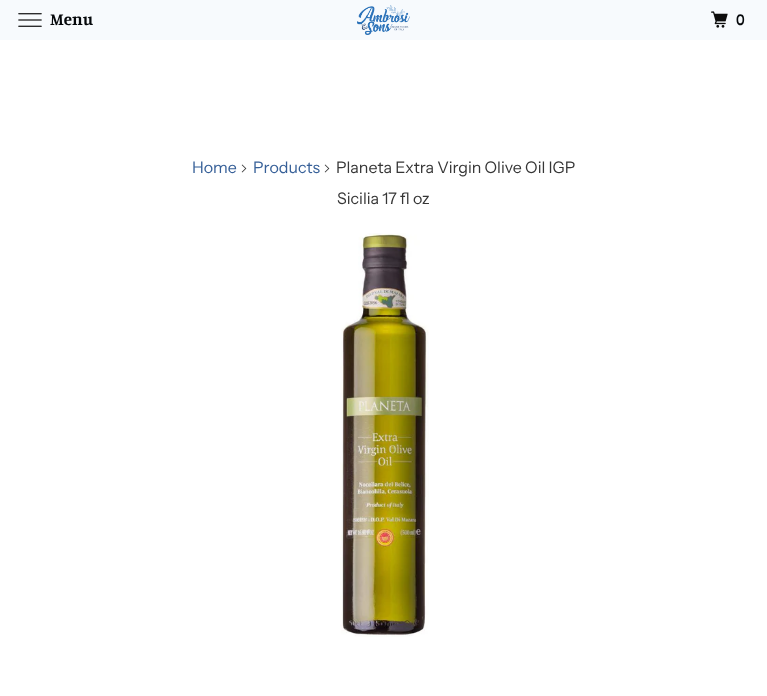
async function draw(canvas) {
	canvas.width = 767;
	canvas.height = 696;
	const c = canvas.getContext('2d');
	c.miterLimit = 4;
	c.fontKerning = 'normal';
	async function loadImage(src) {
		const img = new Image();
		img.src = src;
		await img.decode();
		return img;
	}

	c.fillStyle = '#fff';
	c.fillRect(0, 0, 767, 696);
	c.fillStyle = '#f7fafd';
	c.fillRect(0, 0, 767, 40);
	c.drawImage(await loadImage('img1.png'), 18, 13, 24, 14);
	c.font = 'bold 17px Manuale';
	c.fillStyle = '#05080b';
	c.fillText('Menu', 50, 25);
	c.drawImage(await loadImage('img2.png'), 357, 5, 53, 30);
	c.drawImage(await loadImage('img3.png'), 711, 11, 17, 17);
	c.fillText('0', 736, 25);
	c.font = '16px Instrument Sans';
	c.fillStyle = '#376098';
	c.fillText('Home', 192, 173);
	c.drawImage(await loadImage('img4.png'), 241, 164, 6, 9);
	c.fillText('Products', 253, 173);
	c.drawImage(await loadImage('img4.png'), 324, 164, 6, 9);
	c.fillStyle = '#363636';
	c.fillText('Planeta Extra Virgin Olive Oil IGP', 336, 173);
	c.fillText('Sicilia 17 fl oz', 337, 204);
	c.drawImage(await loadImage('img5.png'), 340, 233, 89, 404);
}

draw(document.querySelector('canvas'));
